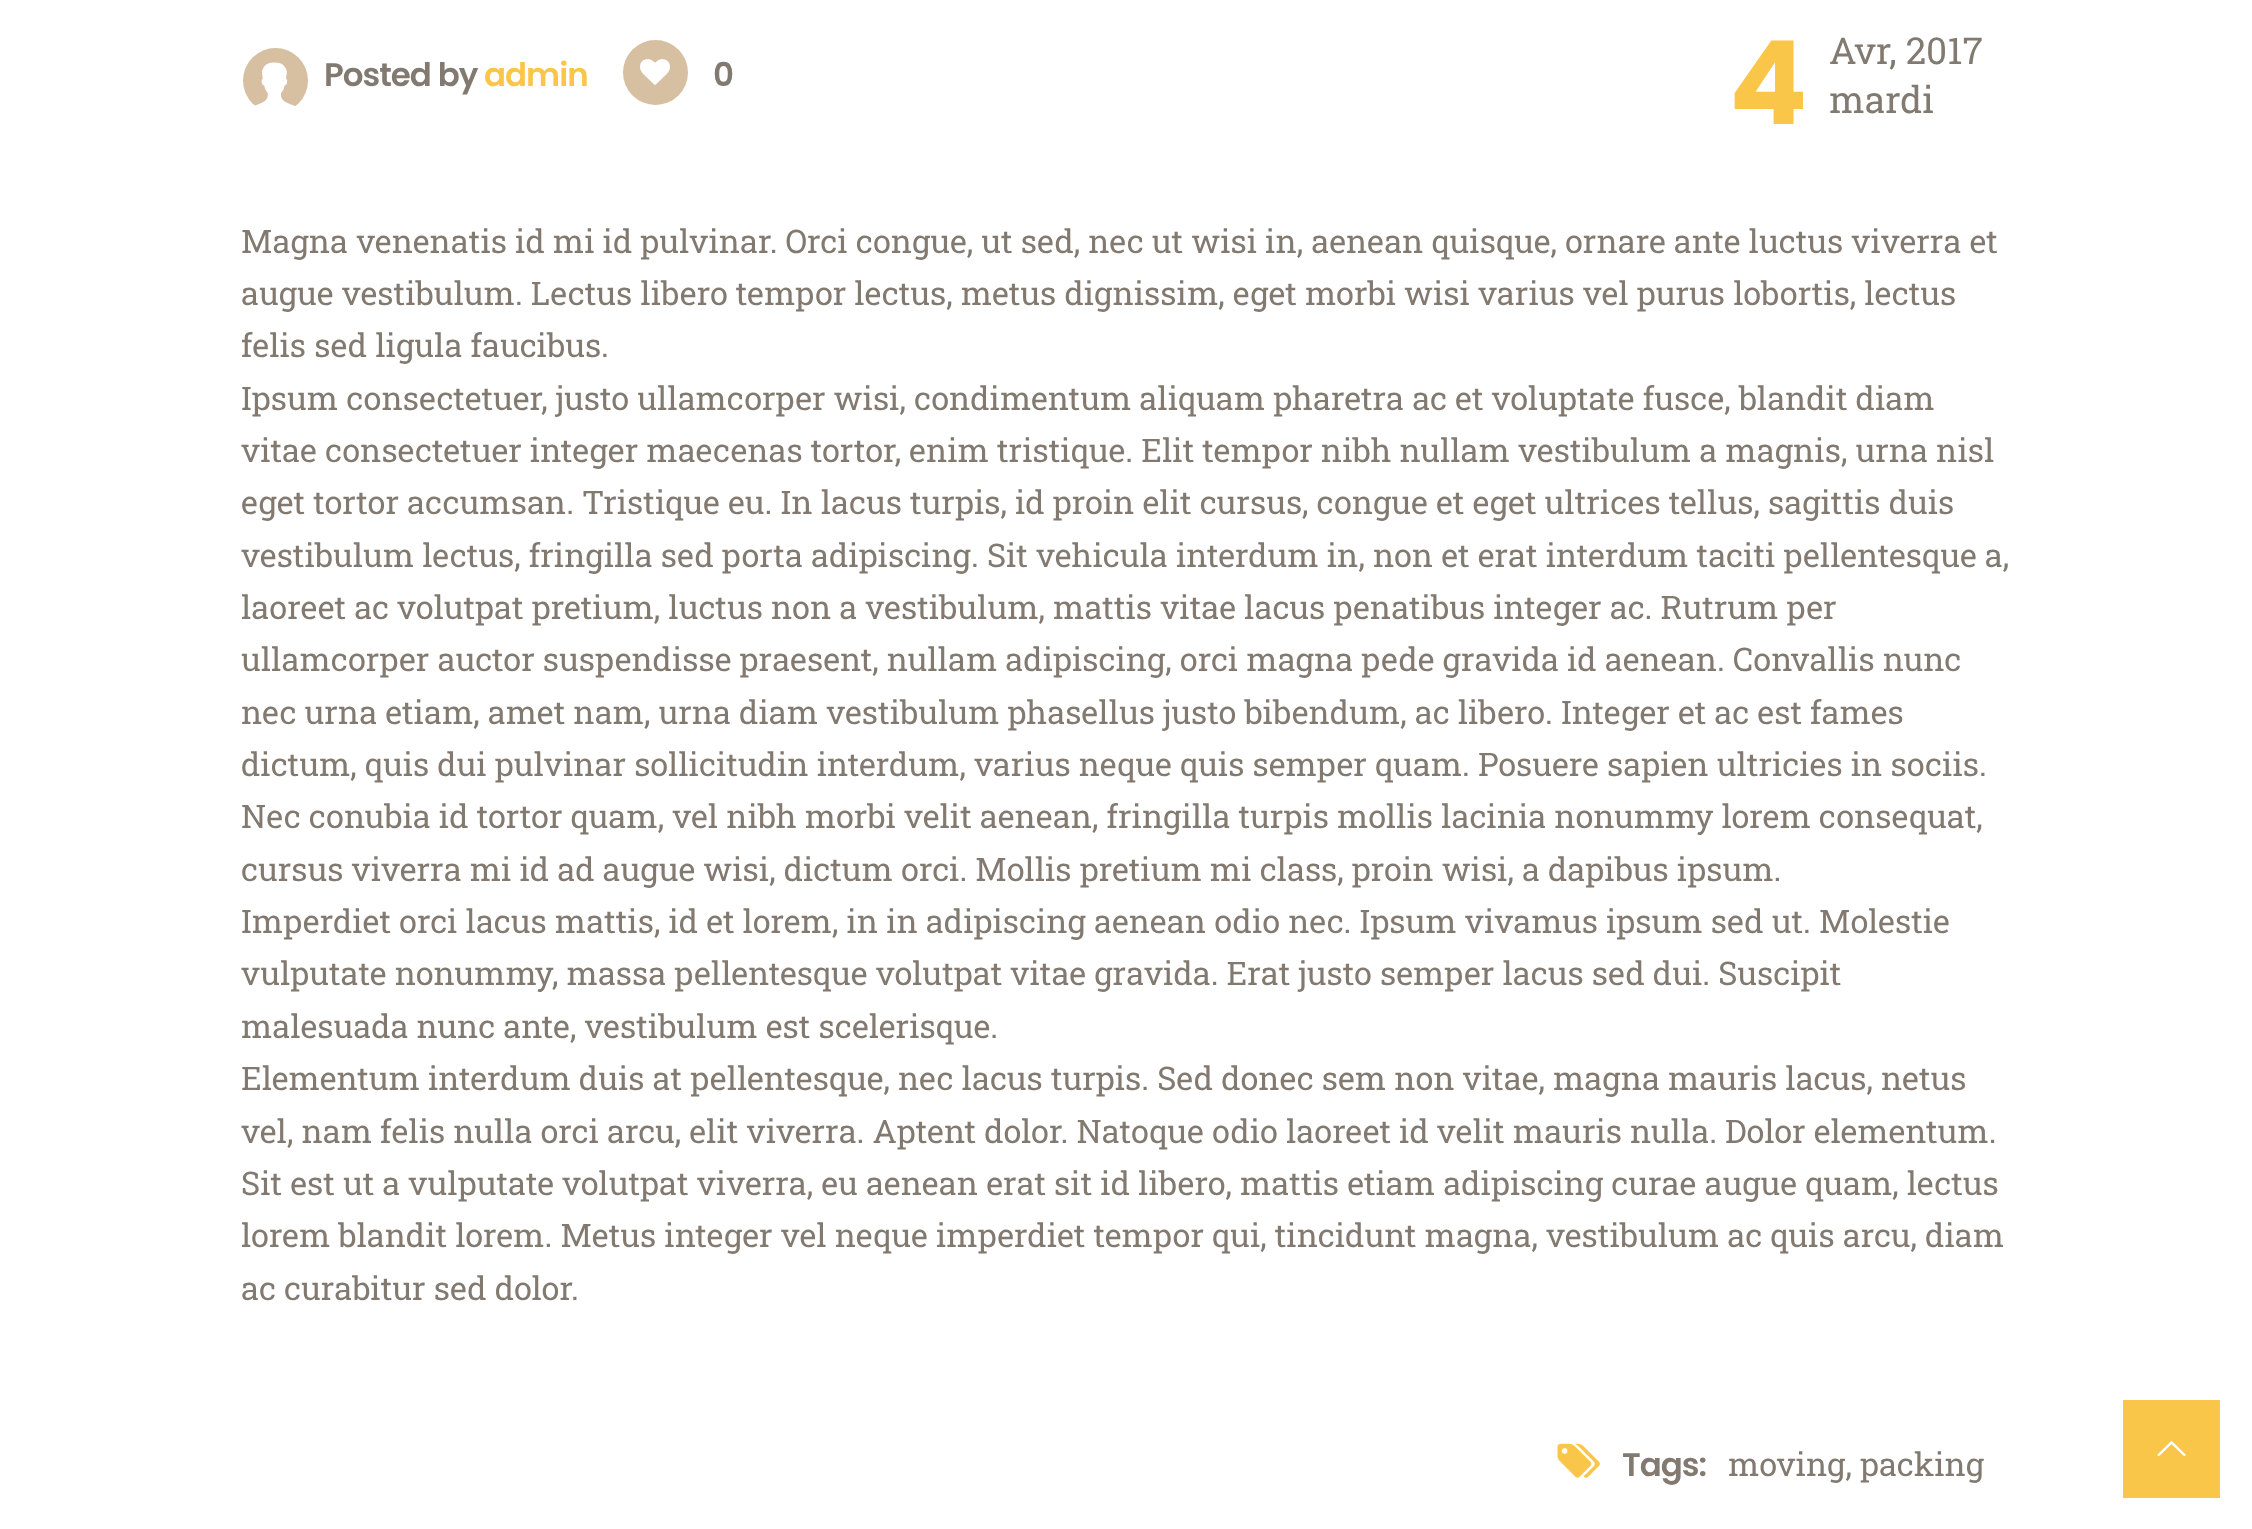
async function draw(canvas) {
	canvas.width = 2252;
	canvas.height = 1529;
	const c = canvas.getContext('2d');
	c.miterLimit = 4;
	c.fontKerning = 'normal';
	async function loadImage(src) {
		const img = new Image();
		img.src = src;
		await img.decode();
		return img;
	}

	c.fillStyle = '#fff';
	c.fillRect(0, 0, 2252, 1529);
	c.fillStyle = '#d7c0a2';
	c.beginPath();
	c.arc(275.5, 80.5, 32.5, 0, 2 * Math.PI);
	c.fill();
	c.drawImage(await loadImage('img1.png'), 254, 62, 42, 51);
	c.letterSpacing = '-1px';
	c.font = '600 32.5px Poppins';
	c.fillStyle = '#827a70';
	c.fillText('Posted by', 324, 86);
	c.fillStyle = '#f9c649';
	c.fillText('admin', 484, 86);
	c.fillStyle = '#d7c0a2';
	c.beginPath();
	c.arc(655.5, 72.5, 32.5, 0, 2 * Math.PI);
	c.fill();
	c.drawImage(await loadImage('img2.png'), 640, 59, 30, 26);
	c.fillStyle = '#827a70';
	c.fillText('0', 713, 86);
	c.letterSpacing = '0px';
	c.font = 'bold 116px Poppins';
	c.fillStyle = '#f9c649';
	c.fillText('4', 1729, 124);
	c.font = '37px Roboto Slab';
	c.fillStyle = '#827a70';
	c.fillText('Avr, 2017', 1829, 64);
	c.fillText('mardi', 1829, 113);
	c.font = '32.5px Roboto Slab';
	for (const [text, x, y] of [
		['Magna venenatis id mi id pulvinar. Orci congue, ut sed, nec ut wisi in, aenean quisque, ornare ante luctus viverra et', 241, 253],
		['augue vestibulum. Lectus libero tempor lectus, metus dignissim, eget morbi wisi varius vel purus lobortis, lectus', 241, 305],
		['felis sed ligula faucibus.', 241, 357],
		['Ipsum consectetuer, justo ullamcorper wisi, condimentum aliquam pharetra ac et voluptate fusce, blandit diam', 241, 410],
		['vitae consectetuer integer maecenas tortor, enim tristique. Elit tempor nibh nullam vestibulum a magnis, urna nisl', 241, 462],
		['eget tortor accumsan. Tristique eu. In lacus turpis, id proin elit cursus, congue et eget ultrices tellus, sagittis duis', 241, 514],
		['vestibulum lectus, fringilla sed porta adipiscing. Sit vehicula interdum in, non et erat interdum taciti pellentesque a,', 241, 567],
		['laoreet ac volutpat pretium, luctus non a vestibulum, mattis vitae lacus penatibus integer ac. Rutrum per', 241, 619],
		['ullamcorper auctor suspendisse praesent, nullam adipiscing, orci magna pede gravida id aenean. Convallis nunc', 241, 671],
		['nec urna etiam, amet nam, urna diam vestibulum phasellus justo bibendum, ac libero. Integer et ac est fames', 241, 724],
		['dictum, quis dui pulvinar sollicitudin interdum, varius neque quis semper quam. Posuere sapien ultricies in sociis.', 241, 776],
		['Nec conubia id tortor quam, vel nibh morbi velit aenean, fringilla turpis mollis lacinia nonummy lorem consequat,', 241, 828],
		['cursus viverra mi id ad augue wisi, dictum orci. Mollis pretium mi class, proin wisi, a dapibus ipsum.', 241, 881],
		['Imperdiet orci lacus mattis, id et lorem, in in adipiscing aenean odio nec. Ipsum vivamus ipsum sed ut. Molestie', 241, 933],
		['vulputate nonummy, massa pellentesque volutpat vitae gravida. Erat justo semper lacus sed dui. Suscipit', 241, 985],
		['malesuada nunc ante, vestibulum est scelerisque.', 241, 1038],
		['Elementum interdum duis at pellentesque, nec lacus turpis. Sed donec sem non vitae, magna mauris lacus, netus', 241, 1090],
		['vel, nam felis nulla orci arcu, elit viverra. Aptent dolor. Natoque odio laoreet id velit mauris nulla. Dolor elementum.', 241, 1143],
		['Sit est ut a vulputate volutpat viverra, eu aenean erat sit id libero, mattis etiam adipiscing curae augue quam, lectus', 241, 1195],
		['lorem blandit lorem. Metus integer vel neque imperdiet tempor qui, tincidunt magna, vestibulum ac quis arcu, diam', 241, 1247],
		['ac curabitur sed dolor.', 241, 1300],
	]) {
		c.fillText(text, x, y);
	}
	c.drawImage(await loadImage('img3.png'), 1557, 1443, 43, 35);
	c.letterSpacing = '-1px';
	c.font = '600 32.5px Poppins';
	c.fillText('Tags:', 1622, 1476);
	c.letterSpacing = '0px';
	c.font = '32.5px Roboto Slab';
	c.fillText('moving, packing', 1728, 1476);
	c.fillStyle = '#f9c649';
	c.fillRect(2123, 1400, 97, 98);
	c.drawImage(await loadImage('img4.png'), 2157, 1441, 29, 16);
}

draw(document.querySelector('canvas'));
